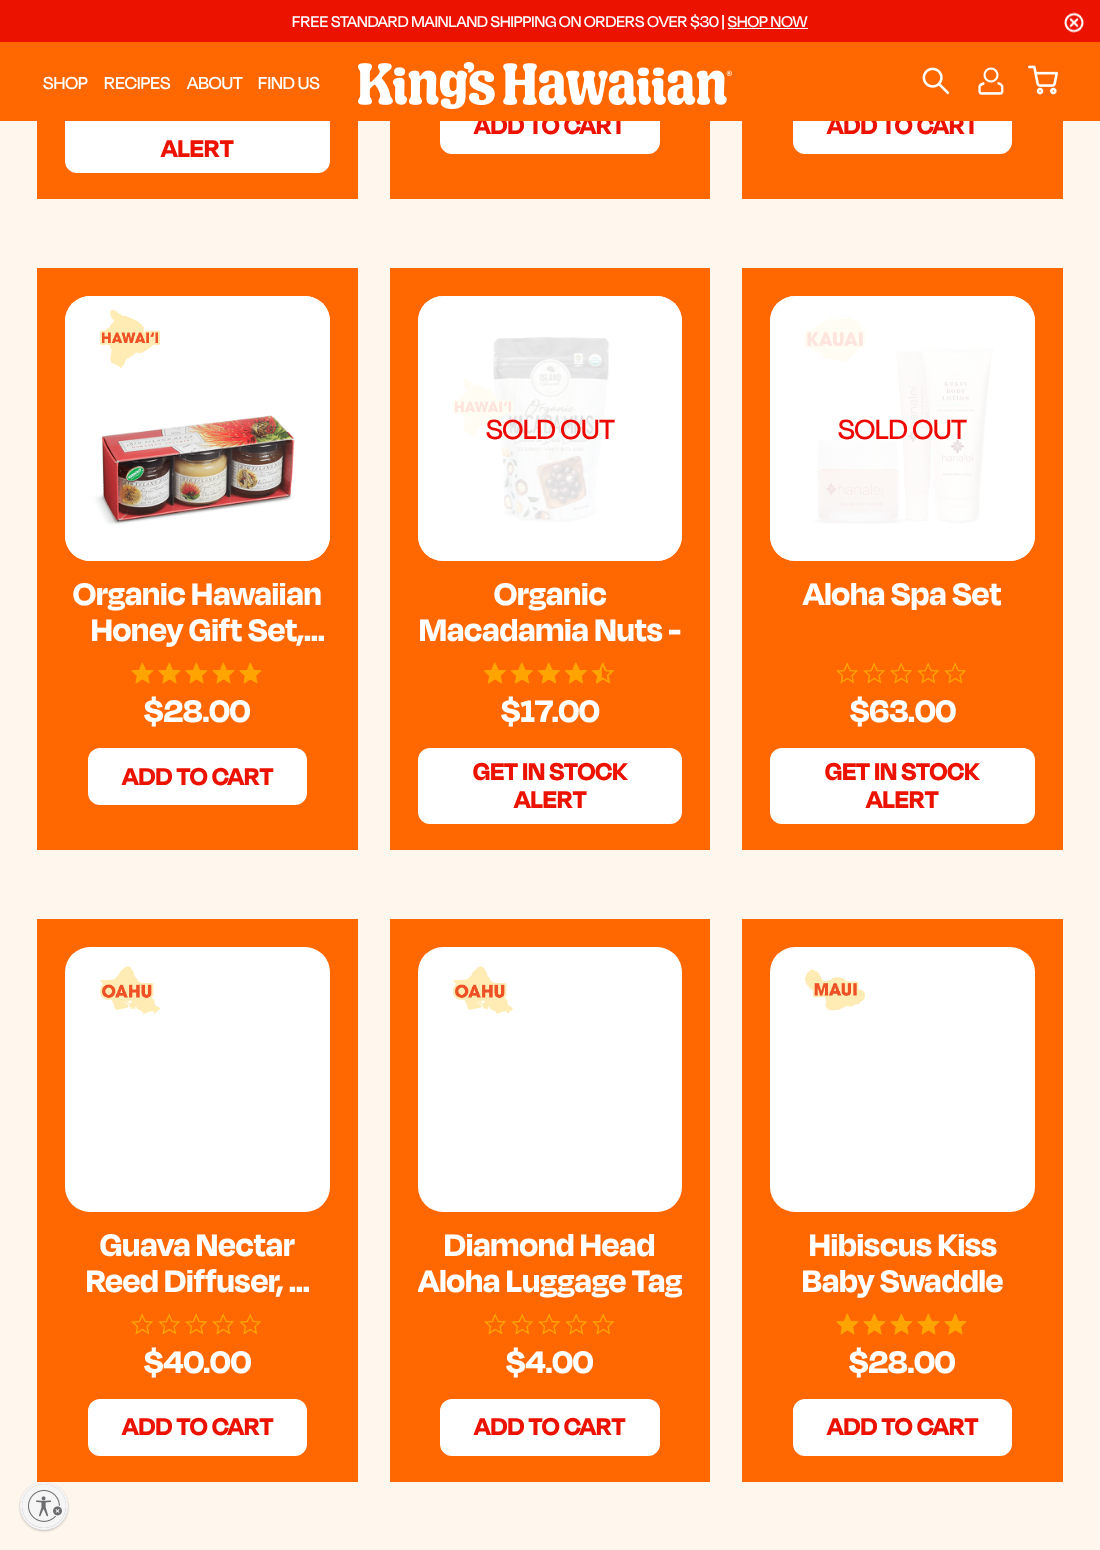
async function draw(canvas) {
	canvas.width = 1100;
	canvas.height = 1550;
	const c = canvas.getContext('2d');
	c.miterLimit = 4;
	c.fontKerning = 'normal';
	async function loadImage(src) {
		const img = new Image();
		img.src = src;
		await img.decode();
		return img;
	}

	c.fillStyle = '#fff6ed';
	c.fillRect(0, 0, 1100, 1550);
	c.fillStyle = '#ec1200';
	c.fillRect(0, 0, 1100, 42);
	c.font = '500 18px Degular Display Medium';
	c.fillStyle = '#fff';
	c.fillText('FREE STANDARD MAINLAND SHIPPING ON ORDERS OVER $30 | SHOP NOW', 292, 27);
	c.fillRect(728, 28, 80, 1);
	c.drawImage(await loadImage('img1.png'), 1064, 12, 20, 21);
	c.fillStyle = '#ff6700';
	c.fillRect(390, 121, 320, 78);
	c.fillStyle = '#fff';
	c.beginPath();
	c.roundRect(441, 98, 218, 55, 11);
	c.fill();
	c.strokeStyle = '#fff';
	c.lineWidth = 2;
	c.stroke();
	c.font = 'bold 28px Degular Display';
	c.fillStyle = '#ec1200';
	c.fillText('ADD TO CART', 474, 134);
	c.fillStyle = '#ff6700';
	c.fillRect(742, 121, 321, 78);
	c.fillStyle = '#fff';
	c.beginPath();
	c.roundRect(794, 98, 217, 55, 11);
	c.fill();
	c.stroke();
	c.fillStyle = '#ec1200';
	c.fillText('ADD TO CART', 827, 134);
	c.fillStyle = '#ff6700';
	c.fillRect(37, 121, 321, 78);
	c.fillStyle = '#fff';
	c.beginPath();
	c.roundRect(66, 98, 263, 74, 11);
	c.fill();
	c.stroke();
	c.fillStyle = '#ff6700';
	c.fillRect(0, 42, 1100, 79);
	c.font = '500 20px Degular Display Medium';
	c.fillStyle = '#fff';
	for (const [text, x, y] of [
		['SHOP', 43, 89],
		['RECIPES', 104, 89],
		['ABOUT', 187, 89],
		['FIND US', 258, 89],
	]) {
		c.fillText(text, x, y);
	}
	c.drawImage(await loadImage('img2.png'), 358, 62, 374, 47);
	c.drawImage(await loadImage('img3.png'), 922, 67, 28, 28);
	c.drawImage(await loadImage('img4.png'), 978, 67, 26, 28);
	c.drawImage(await loadImage('img5.png'), 1028, 65, 30, 30);
	c.font = 'bold 28px Degular Display';
	c.fillStyle = '#ec1200';
	c.fillText('ALERT', 161, 157);
	c.fillStyle = '#ff6700';
	c.fillRect(37, 268, 321, 582);
	c.fillStyle = '#fff';
	c.beginPath();
	c.roundRect(65, 296, 265, 265, 25);
	c.fill();
	c.drawImage(await loadImage('img6.png'), 65, 296, 265, 265);
	c.drawImage(await loadImage('img7.png'), 100, 309, 60, 60);
	c.letterSpacing = '0.25px';
	c.font = 'bold 36px Degular Display';
	c.fillText('Organic Hawaiian', 73, 605);
	c.fillText('Honey Gift Set,…', 91, 641);
	c.drawImage(await loadImage('img8.png'), 131, 662, 23, 22);
	c.drawImage(await loadImage('img8.png'), 158, 662, 23, 22);
	c.drawImage(await loadImage('img8.png'), 185, 662, 23, 22);
	c.drawImage(await loadImage('img8.png'), 212, 662, 23, 22);
	c.drawImage(await loadImage('img8.png'), 239, 662, 23, 22);
	c.drawImage(await loadImage('img9.png'), 131, 662, 23, 22);
	c.drawImage(await loadImage('img9.png'), 158, 662, 23, 22);
	c.drawImage(await loadImage('img9.png'), 185, 662, 23, 22);
	c.drawImage(await loadImage('img9.png'), 212, 662, 23, 22);
	c.drawImage(await loadImage('img9.png'), 239, 662, 23, 22);
	c.letterSpacing = '0px';
	c.fillText('$28.00', 144, 722);
	c.beginPath();
	c.roundRect(89, 749, 217, 55, 11);
	c.fill();
	c.stroke();
	c.font = 'bold 28px Degular Display';
	c.fillStyle = '#ec1200';
	c.fillText('ADD TO CART', 122, 785);
	c.fillStyle = '#ff6700';
	c.fillRect(390, 268, 320, 582);
	c.fillStyle = '#fff';
	c.beginPath();
	c.roundRect(418, 296, 264, 265, 25);
	c.fill();
	c.drawImage(await loadImage('img11.png'), 493, 336, 117, 187);
	c.drawImage(await loadImage('img10.png'), 453, 378, 60, 60);
	c.fillStyle = '#ffffffd9';
	c.beginPath();
	c.roundRect(418, 296, 264, 265, 25);
	c.fill();
	c.font = '500 32px Degular Display Medium';
	c.fillStyle = '#ee0803';
	c.fillText('SOLD OUT', 486, 439);
	c.letterSpacing = '0.25px';
	c.font = 'bold 36px Degular Display';
	c.fillStyle = '#fff';
	c.fillText('Organic', 494, 605);
	c.fillText('Macadamia Nuts -', 419, 641);
	c.drawImage(await loadImage('img8.png'), 483, 662, 23, 22);
	c.drawImage(await loadImage('img8.png'), 510, 662, 23, 22);
	c.drawImage(await loadImage('img8.png'), 537, 662, 23, 22);
	c.drawImage(await loadImage('img8.png'), 564, 662, 23, 22);
	c.drawImage(await loadImage('img12.png'), 591, 662, 23, 22);
	c.drawImage(await loadImage('img13.png'), 484, 662, 23, 22);
	c.drawImage(await loadImage('img13.png'), 511, 662, 23, 22);
	c.drawImage(await loadImage('img13.png'), 538, 662, 23, 22);
	c.drawImage(await loadImage('img13.png'), 565, 662, 23, 22);
	c.drawImage(await loadImage('img14.png'), 592, 662, 23, 22);
	c.letterSpacing = '0px';
	c.fillText('$17.00', 501, 722);
	c.beginPath();
	c.roundRect(419, 749, 262, 74, 11);
	c.fill();
	c.stroke();
	c.font = 'bold 28px Degular Display';
	c.fillStyle = '#ec1200';
	c.fillText('GET IN STOCK', 473, 780);
	c.fillText('ALERT', 514, 808);
	c.fillStyle = '#ff6700';
	c.fillRect(742, 268, 321, 582);
	c.fillStyle = '#fff';
	c.beginPath();
	c.roundRect(770, 296, 265, 265, 25);
	c.fill();
	c.drawImage(await loadImage('img16.png'), 810, 347, 184, 178);
	c.drawImage(await loadImage('img15.png'), 805, 317, 60, 46);
	c.fillStyle = '#ffffffd9';
	c.beginPath();
	c.roundRect(770, 296, 265, 265, 25);
	c.fill();
	c.font = '500 32px Degular Display Medium';
	c.fillStyle = '#ee0803';
	c.fillText('SOLD OUT', 838, 439);
	c.letterSpacing = '0.25px';
	c.font = 'bold 36px Degular Display';
	c.fillStyle = '#fff';
	c.fillText('Aloha Spa Set', 803, 605);
	c.drawImage(await loadImage('img17.png'), 836, 662, 23, 22);
	c.drawImage(await loadImage('img17.png'), 863, 662, 23, 22);
	c.drawImage(await loadImage('img17.png'), 890, 662, 23, 22);
	c.drawImage(await loadImage('img17.png'), 917, 662, 23, 22);
	c.drawImage(await loadImage('img17.png'), 944, 662, 23, 22);
	c.letterSpacing = '0px';
	c.fillText('$63.00', 850, 722);
	c.beginPath();
	c.roundRect(771, 749, 263, 74, 11);
	c.fill();
	c.stroke();
	c.font = 'bold 28px Degular Display';
	c.fillStyle = '#ec1200';
	c.fillText('GET IN STOCK', 825, 780);
	c.fillText('ALERT', 866, 808);
	c.fillStyle = '#ff6700';
	c.fillRect(37, 919, 321, 563);
	c.fillStyle = '#fff';
	c.beginPath();
	c.roundRect(65, 947, 265, 265, 25);
	c.fill();
	c.drawImage(await loadImage('img18.png'), 100, 966, 60, 48);
	c.letterSpacing = '0.25px';
	c.font = 'bold 36px Degular Display';
	c.fillText('Guava Nectar', 100, 1256);
	c.fillText('Reed Diffuser, …', 86, 1292);
	c.drawImage(await loadImage('img17.png'), 131, 1313, 23, 22);
	c.drawImage(await loadImage('img17.png'), 158, 1313, 23, 22);
	c.drawImage(await loadImage('img17.png'), 185, 1313, 23, 22);
	c.drawImage(await loadImage('img17.png'), 212, 1313, 23, 22);
	c.drawImage(await loadImage('img17.png'), 239, 1313, 23, 22);
	c.letterSpacing = '0px';
	c.fillText('$40.00', 144, 1373);
	c.beginPath();
	c.roundRect(89, 1400, 217, 55, 11);
	c.fill();
	c.stroke();
	c.font = 'bold 28px Degular Display';
	c.fillStyle = '#ec1200';
	c.fillText('ADD TO CART', 122, 1435);
	c.fillStyle = '#ff6700';
	c.fillRect(390, 919, 320, 563);
	c.fillStyle = '#fff';
	c.beginPath();
	c.roundRect(418, 947, 264, 265, 25);
	c.fill();
	c.drawImage(await loadImage('img19.png'), 453, 966, 60, 48);
	c.letterSpacing = '0.25px';
	c.font = 'bold 36px Degular Display';
	c.fillText('Diamond Head', 444, 1256);
	c.save();
	c.beginPath();
	c.rect(418, 1226, 264, 72);
	c.clip();
	c.fillText('Aloha Luggage Tag', 418, 1292);
	c.restore();
	c.drawImage(await loadImage('img17.png'), 484, 1313, 23, 22);
	c.drawImage(await loadImage('img17.png'), 511, 1313, 23, 22);
	c.drawImage(await loadImage('img17.png'), 538, 1313, 23, 22);
	c.drawImage(await loadImage('img17.png'), 565, 1313, 23, 22);
	c.drawImage(await loadImage('img17.png'), 592, 1313, 23, 22);
	c.letterSpacing = '0px';
	c.fillText('$4.00', 506, 1373);
	c.beginPath();
	c.roundRect(441, 1400, 218, 55, 11);
	c.fill();
	c.stroke();
	c.font = 'bold 28px Degular Display';
	c.fillStyle = '#ec1200';
	c.fillText('ADD TO CART', 474, 1435);
	c.fillStyle = '#ff6700';
	c.fillRect(742, 919, 321, 563);
	c.fillStyle = '#fff';
	c.beginPath();
	c.roundRect(770, 947, 265, 265, 25);
	c.fill();
	c.drawImage(await loadImage('img20.png'), 805, 969, 60, 42);
	c.letterSpacing = '0.25px';
	c.font = 'bold 36px Degular Display';
	c.fillText('Hibiscus Kiss', 809, 1256);
	c.fillText('Baby Swaddle', 802, 1292);
	c.drawImage(await loadImage('img8.png'), 836, 1313, 23, 22);
	c.drawImage(await loadImage('img8.png'), 863, 1313, 23, 22);
	c.drawImage(await loadImage('img8.png'), 890, 1313, 23, 22);
	c.drawImage(await loadImage('img8.png'), 917, 1313, 23, 22);
	c.drawImage(await loadImage('img8.png'), 944, 1313, 23, 22);
	c.drawImage(await loadImage('img9.png'), 836, 1313, 23, 22);
	c.drawImage(await loadImage('img9.png'), 863, 1313, 23, 22);
	c.drawImage(await loadImage('img9.png'), 890, 1313, 23, 22);
	c.drawImage(await loadImage('img9.png'), 917, 1313, 23, 22);
	c.drawImage(await loadImage('img9.png'), 944, 1313, 23, 22);
	c.letterSpacing = '0px';
	c.fillText('$28.00', 849, 1373);
	c.beginPath();
	c.roundRect(794, 1400, 217, 55, 11);
	c.fill();
	c.stroke();
	c.font = 'bold 28px Degular Display';
	c.fillStyle = '#ec1200';
	c.fillText('ADD TO CART', 827, 1435);
	c.fillStyle = '#0000003d';
	c.filter = 'blur(1px)';
	c.beginPath();
	c.roundRect(20, 1483, 48, 48, 24);
	c.fill();
	c.filter = 'none';
	c.beginPath();
	c.arc(44, 1506, 23, 0, 2 * Math.PI);
	c.strokeStyle = '#f5f5f5';
	c.stroke();
	c.save();
	c.beginPath();
	c.roundRect(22, 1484, 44, 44, 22);
	c.clip();
	c.filter = 'blur(1px)';
	c.beginPath();
	c.roundRect(22, 1485, 44, 44, 22);
	c.fill();
	c.filter = 'none';
	c.restore();
	c.fillStyle = '#f5f5f5';
	c.beginPath();
	c.arc(44, 1506, 22, 0, 2 * Math.PI);
	c.fill();
	c.drawImage(await loadImage('img21.png'), 28, 1490, 34, 32);
}

draw(document.querySelector('canvas'));
